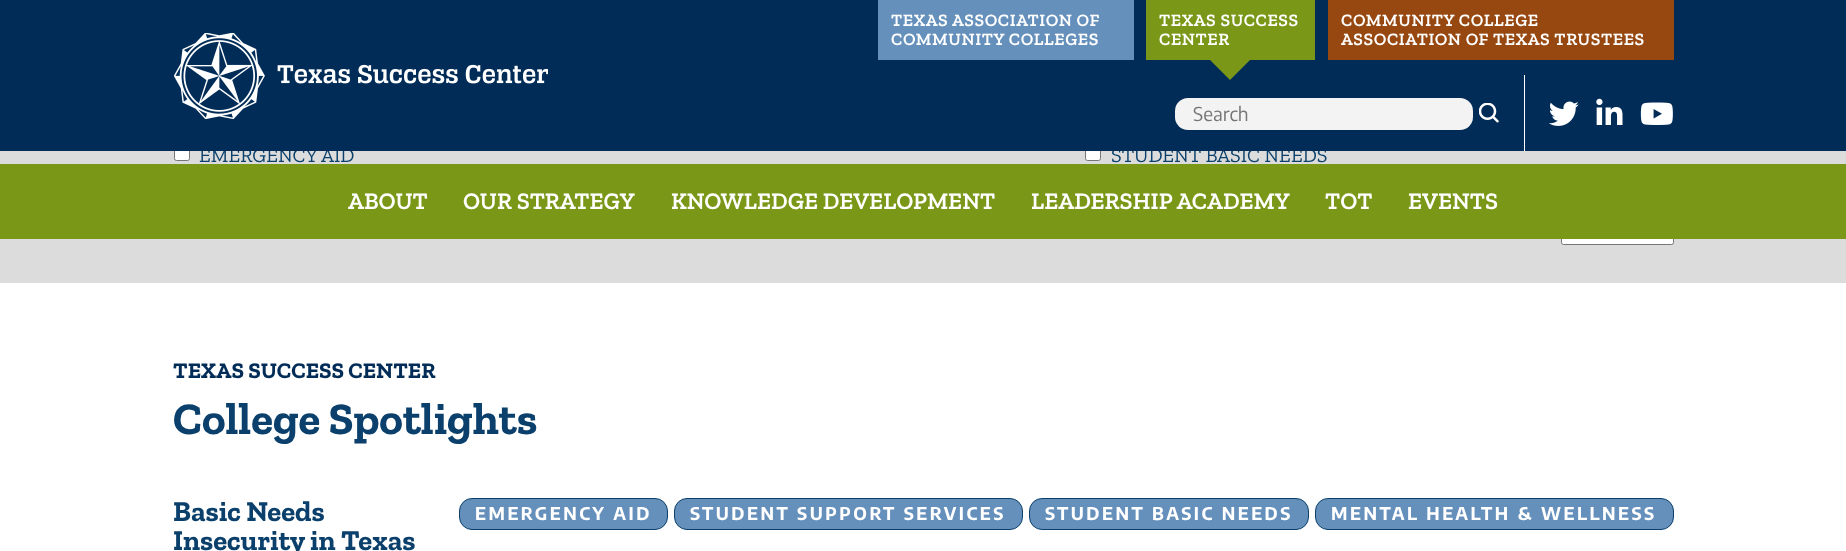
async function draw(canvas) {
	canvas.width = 1846;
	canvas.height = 551;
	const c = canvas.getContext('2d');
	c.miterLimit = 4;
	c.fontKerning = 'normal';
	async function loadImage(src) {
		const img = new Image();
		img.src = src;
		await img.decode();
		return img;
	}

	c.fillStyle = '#fff';
	c.fillRect(0, 0, 1846, 551);
	c.fillStyle = '#dcdcdc';
	c.fillRect(0, 151, 1846, 132);
	c.fillStyle = '#fff';
	c.beginPath();
	c.roundRect(174.5, 145.5, 15, 15, 2);
	c.fill();
	c.strokeStyle = '#767676';
	c.stroke();
	c.font = '20px Zilla Slab';
	c.fillStyle = '#0a406b';
	c.fillText('EMERGENCY AID', 199, 162);
	c.fillStyle = '#fff';
	c.beginPath();
	c.roundRect(1085.5, 145.5, 15, 15, 2);
	c.fill();
	c.stroke();
	c.fillStyle = '#0a406b';
	c.fillText('STUDENT BASIC NEEDS', 1111, 162);
	c.fillStyle = '#012c57';
	c.fillRect(0, 0, 1846, 151);
	c.drawImage(await loadImage('img1.png'), 174, 33, 374, 86);
	c.fillStyle = '#6590bb';
	c.fillRect(878, 0, 256, 60);
	c.letterSpacing = '0.6px';
	c.font = '600 17.5px Zilla Slab';
	c.fillStyle = '#fff';
	c.fillText('TEXAS ASSOCIATION OF', 891, 26);
	c.fillText('COMMUNITY COLLEGES', 891, 45);
	c.fillStyle = '#7a9717';
	c.fillRect(1146, 0, 169, 60);
	c.fillStyle = '#fff';
	c.fillText('TEXAS SUCCESS', 1159, 26);
	c.fillText('CENTER', 1159, 45);
	c.fillStyle = '#7a9717';
	c.beginPath();
	c.moveTo(1209, 59);
	c.lineTo(1251, 59);
	c.lineTo(1230, 80);
	c.closePath();
	c.fill();
	c.fillStyle = '#974810';
	c.fillRect(1328, 0, 346, 60);
	c.fillStyle = '#fff';
	c.fillText('COMMUNITY COLLEGE', 1341, 26);
	c.fillText('ASSOCIATION OF TEXAS TRUSTEES', 1341, 45);
	c.fillStyle = '#f3f3f3';
	c.beginPath();
	c.roundRect(1175, 98, 298, 32, 13);
	c.fill();
	c.letterSpacing = '0px';
	c.font = '19px Encode Sans Condensed';
	c.fillStyle = '#757575';
	c.fillText('Search', 1193, 121);
	c.drawImage(await loadImage('img2.png'), 1479, 103, 20, 20);
	c.fillStyle = '#fff';
	c.fillRect(1524, 75, 1, 76);
	c.drawImage(await loadImage('img3.png'), 1549, 101, 30, 25);
	c.drawImage(await loadImage('img4.png'), 1596, 98, 27, 27);
	c.drawImage(await loadImage('img5.png'), 1640, 102, 33, 23);
	c.beginPath();
	c.roundRect(1561.5, 221.5, 112, 23, 2);
	c.fill();
	c.stroke();
	c.fillStyle = '#7a9717';
	c.fillRect(0, 164, 1846, 75);
	c.font = '600 23.75px Zilla Slab';
	c.fillStyle = '#fff';
	for (const [text, x, y] of [
		['ABOUT', 348, 209],
		['OUR STRATEGY', 463, 209],
		['KNOWLEDGE DEVELOPMENT', 671, 209],
		['LEADERSHIP ACADEMY', 1031, 209],
		['TOT', 1325, 209],
		['EVENTS', 1408, 209],
	]) {
		c.fillText(text, x, y);
	}
	c.font = 'bold 22.5px Zilla Slab';
	c.fillStyle = '#012c57';
	c.fillText('TEXAS SUCCESS CENTER', 173, 378);
	c.font = 'bold 45px Zilla Slab';
	c.fillStyle = '#0a406b';
	c.fillText('College Spotlights', 173, 434);
	c.font = 'bold 28.75px Zilla Slab';
	c.fillText('Basic Needs', 173, 521);
	c.fillText('Insecurity in Texas', 173, 550);
	c.fillStyle = '#6590bb';
	c.beginPath();
	c.roundRect(459.5, 498.5, 208, 31, 12.5);
	c.fill();
	c.strokeStyle = '#0a406b';
	c.stroke();
	c.letterSpacing = '2.5px';
	c.font = 'bold 17.5px Encode Sans Condensed';
	c.fillStyle = '#fff';
	c.fillText('EMERGENCY AID', 475, 520);
	c.fillStyle = '#6590bb';
	c.beginPath();
	c.roundRect(674.5, 498.5, 348, 31, 12.5);
	c.fill();
	c.stroke();
	c.fillStyle = '#fff';
	c.fillText('STUDENT SUPPORT SERVICES', 690, 520);
	c.fillStyle = '#6590bb';
	c.beginPath();
	c.roundRect(1029.5, 498.5, 279, 31, 12.5);
	c.fill();
	c.stroke();
	c.fillStyle = '#fff';
	c.fillText('STUDENT BASIC NEEDS', 1045, 520);
	c.fillStyle = '#6590bb';
	c.beginPath();
	c.roundRect(1315.5, 498.5, 358, 31, 12.5);
	c.fill();
	c.stroke();
	c.fillStyle = '#fff';
	c.fillText('MENTAL HEALTH & WELLNESS', 1331, 520);
}

draw(document.querySelector('canvas'));
